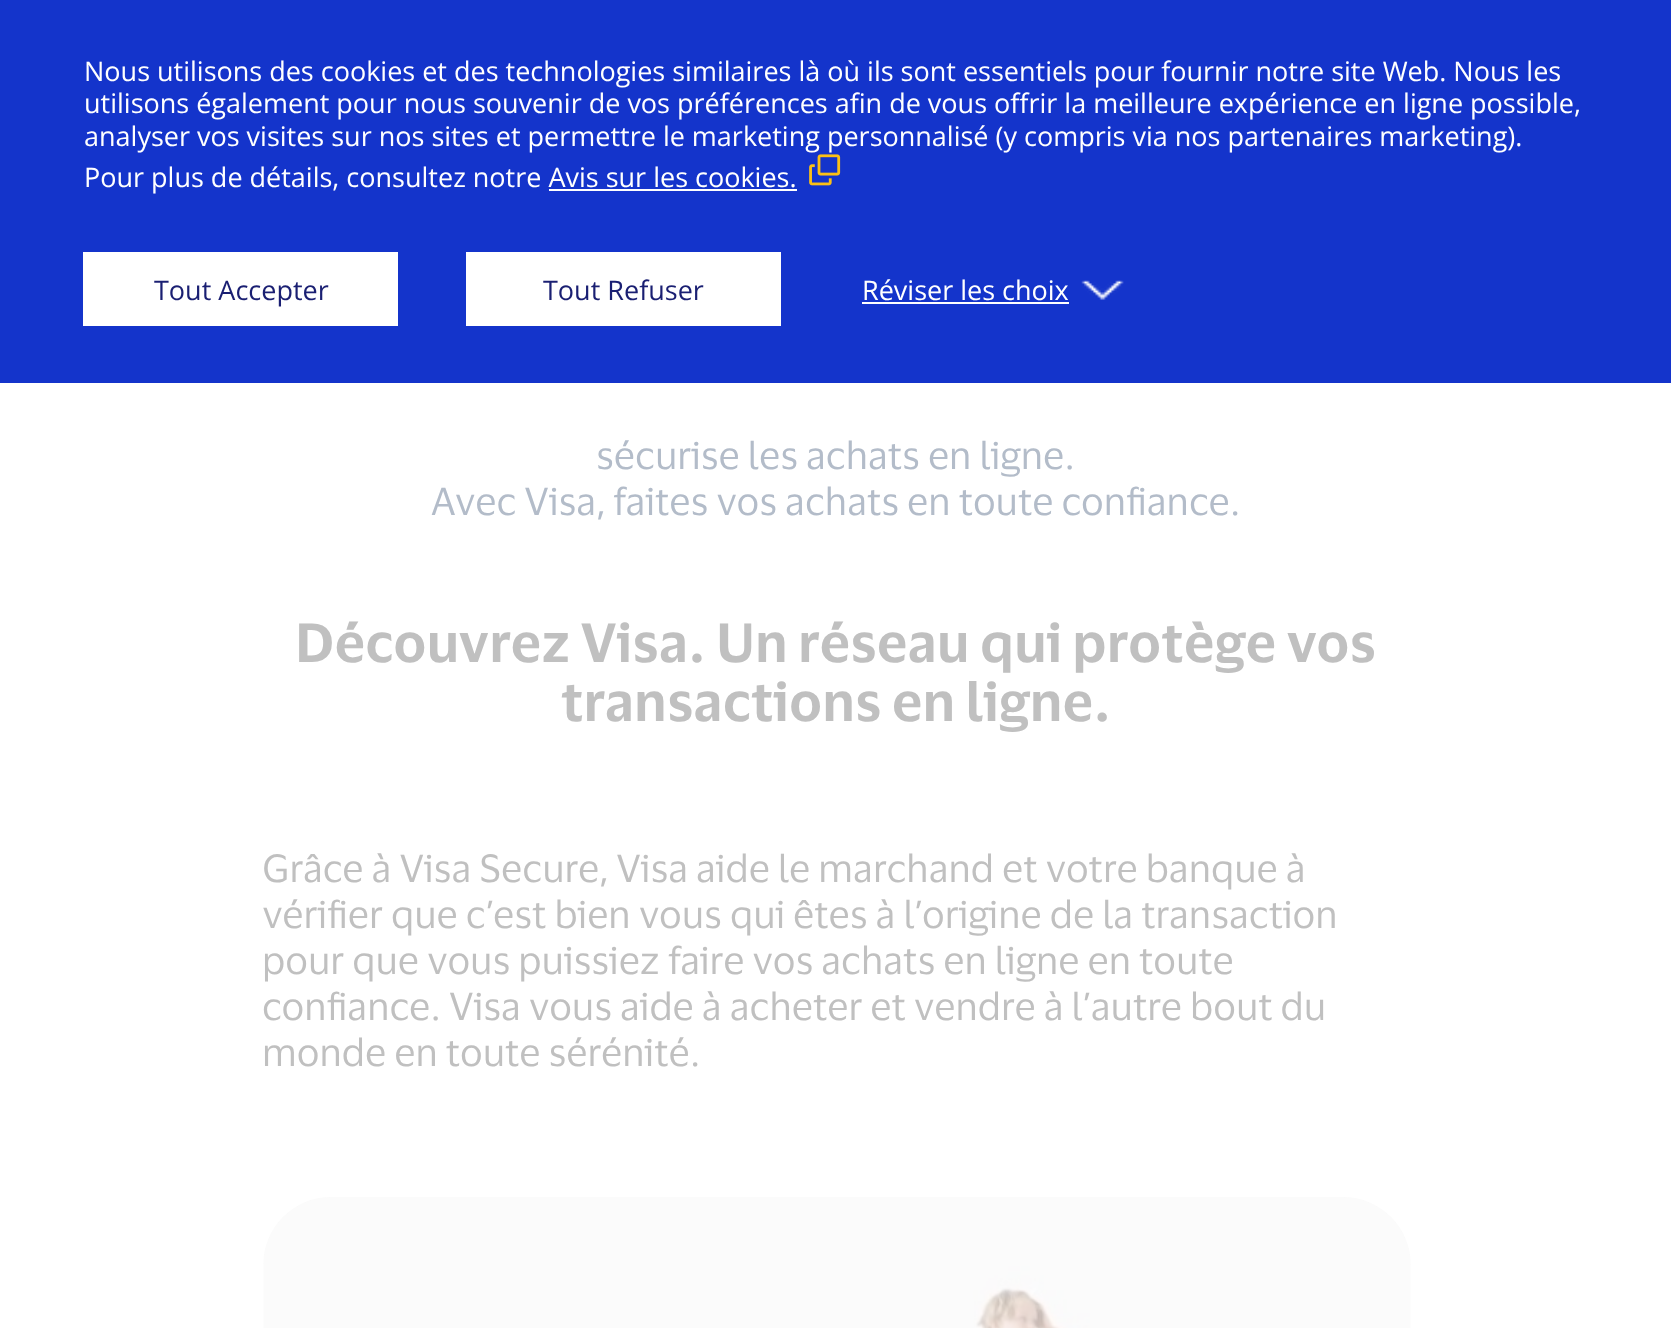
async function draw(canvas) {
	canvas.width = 1671;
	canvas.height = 1328;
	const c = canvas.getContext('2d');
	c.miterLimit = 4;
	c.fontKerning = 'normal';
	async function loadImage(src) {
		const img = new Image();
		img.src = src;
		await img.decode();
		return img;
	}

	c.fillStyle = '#fff';
	c.fillRect(0, 0, 1671, 1328);
	c.fillStyle = '#1434cb';
	c.fillRect(0, 0, 1671, 383);
	c.font = '27px Open Sans';
	c.fillStyle = '#fff';
	for (const [text, x, y] of [
		['Nous utilisons des cookies et des technologies similaires là où ils sont essentiels pour fournir notre site Web. Nous les', 84, 81],
		['utilisons également pour nous souvenir de vos préférences afin de vous offrir la meilleure expérience en ligne possible,', 84, 113],
		['analyser vos visites sur nos sites et permettre le marketing personnalisé (y compris via nos partenaires marketing).', 84, 146],
	]) {
		c.fillText(text, x, y);
	}
	c.drawImage(await loadImage('img1.png'), 809, 154, 32, 32);
	c.fillRect(549, 189, 248, 2);
	c.fillText('Pour plus de détails, consultez notre Avis sur les cookies.', 84, 187);
	c.fillRect(83, 252, 315, 74);
	c.fillStyle = '#1a1f72';
	c.fillText('Tout Accepter', 154, 300);
	c.fillStyle = '#fff';
	c.fillRect(466, 252, 315, 74);
	c.fillStyle = '#1a1f72';
	c.fillText('Tout Refuser', 543, 300);
	c.fillStyle = '#fff';
	c.fillText('Réviser les choix', 862, 300);
	c.fillRect(862, 302, 207, 2);
	c.drawImage(await loadImage('img2.png'), 1081, 280, 43, 20);
	c.font = '38.25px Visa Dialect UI';
	c.fillStyle = '#b3bcc9';
	c.fillText('sécurise les achats en ligne.', 596, 469);
	c.fillText('Avec Visa, faites vos achats en toute confiance.', 431, 515);
	c.font = '600 54px Visa Dialect UI';
	c.fillStyle = '#c0c0c0';
	c.fillText('Découvrez Visa. Un réseau qui protège vos', 295, 662);
	c.fillText('transactions en ligne.', 561, 721);
	c.font = '38.25px Visa Dialect UI';
	for (const [text, x, y] of [
		['Grâce à Visa Secure, Visa aide le marchand et votre banque à', 262, 882],
		['vérifier que c’est bien vous qui êtes à l’origine de la transaction', 262, 928],
		['pour que vous puissiez faire vos achats en ligne en toute', 262, 974],
		['confiance. Visa vous aide à acheter et vendre à l’autre bout du', 262, 1020],
		['monde en toute sérénité.', 262, 1066],
	]) {
		c.fillText(text, x, y);
	}
	c.drawImage(await loadImage('img3.png'), 263, 1197, 1148, 131);
}

draw(document.querySelector('canvas'));
